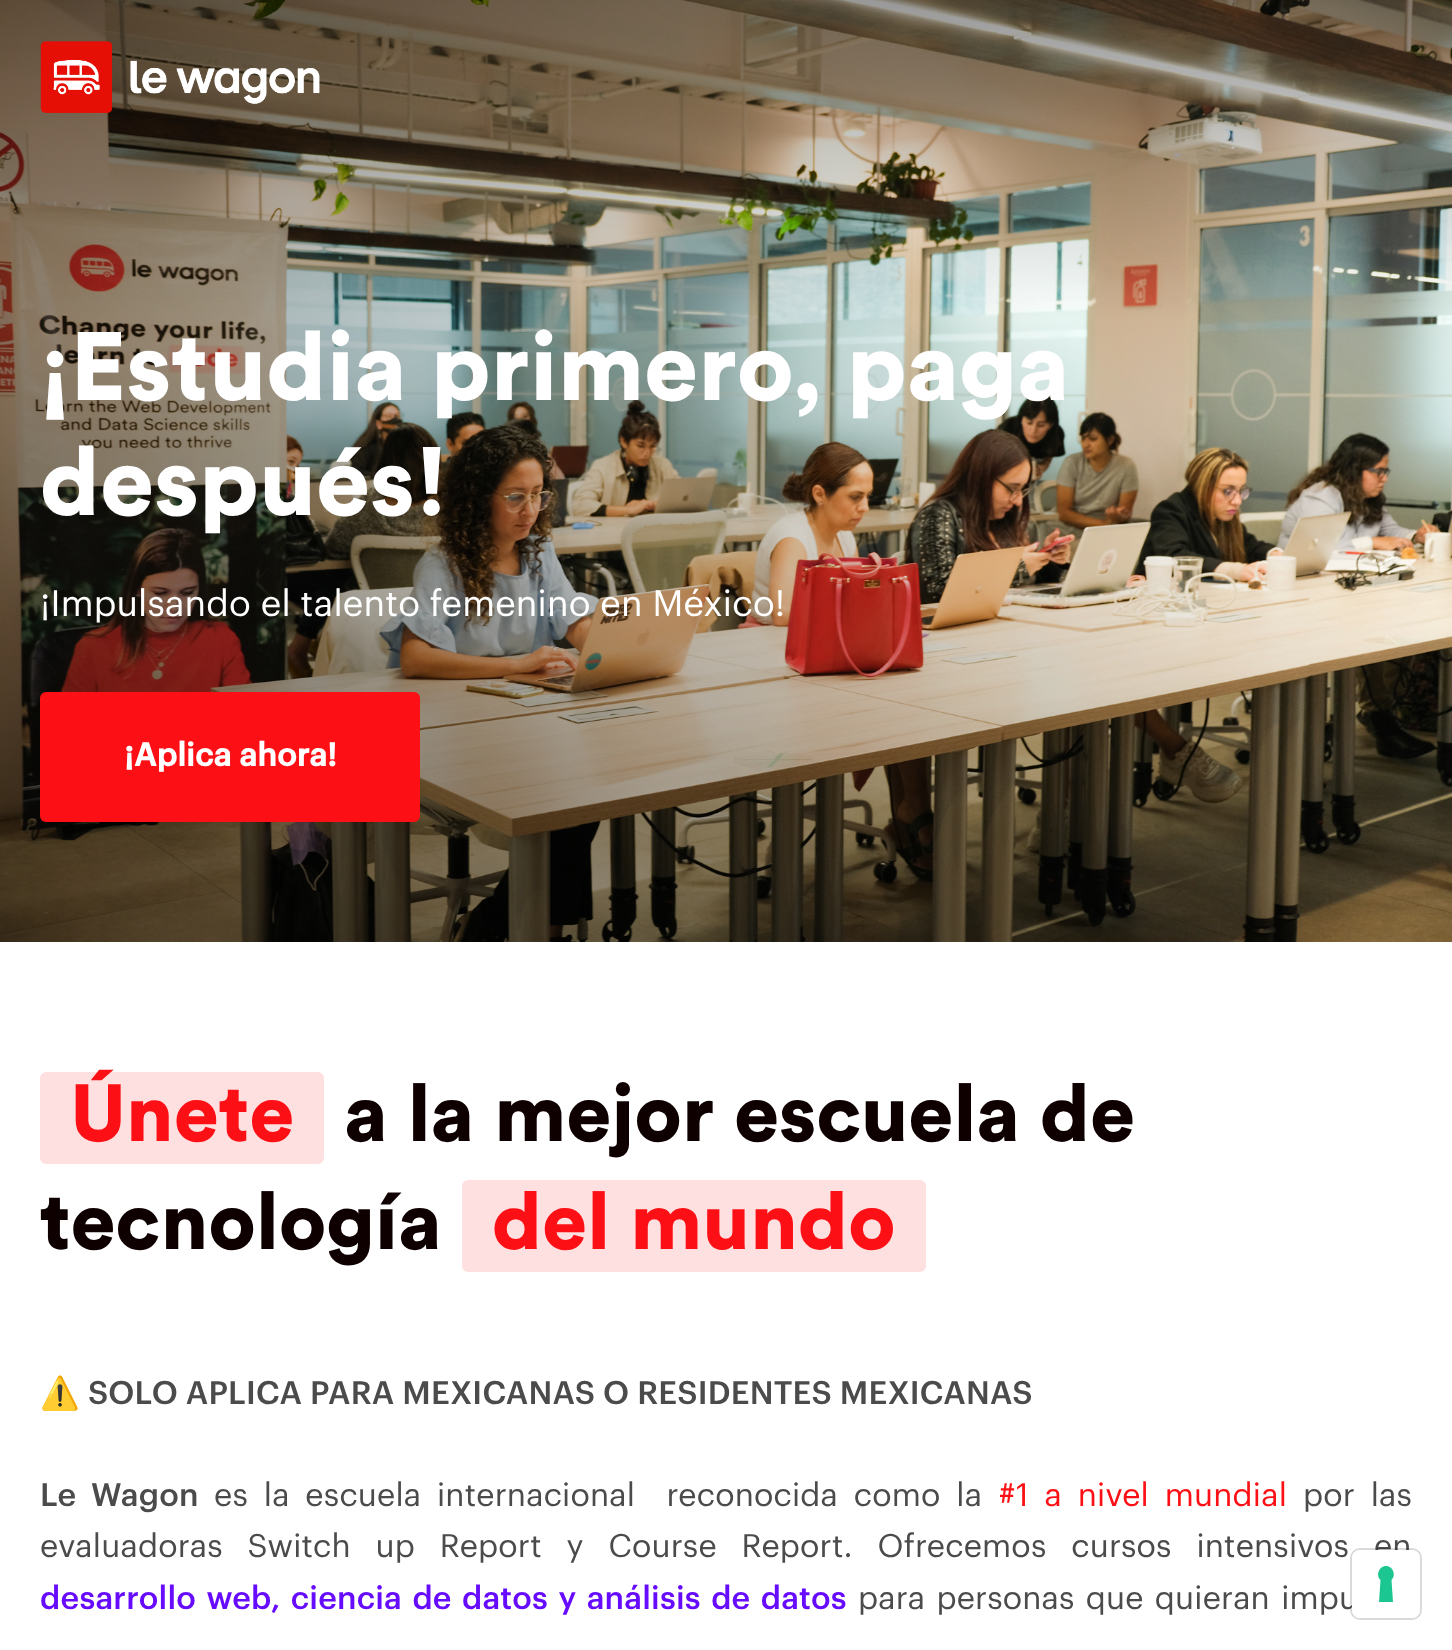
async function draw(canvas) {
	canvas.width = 1452;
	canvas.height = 1650;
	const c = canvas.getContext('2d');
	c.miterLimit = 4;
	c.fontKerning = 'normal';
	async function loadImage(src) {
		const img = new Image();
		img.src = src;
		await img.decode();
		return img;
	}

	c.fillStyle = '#fff';
	c.fillRect(0, 0, 1452, 1650);
	c.drawImage(await loadImage('img1.png'), 0, 0, 1452, 942);
	c.drawImage(await loadImage('img2.png'), 40, 41, 280, 72);
	c.letterSpacing = '0.2px';
	c.font = '900 96px Circular';
	c.fillText('¡Estudia primero, paga', 40, 400);
	c.fillText('después!', 40, 515);
	c.font = 'italic 36px Graphik';
	c.fillText('¡Impulsando el talento femenino en México!', 40, 616);
	c.fillStyle = '#fd1015';
	c.beginPath();
	c.roundRect(40, 692, 380, 130, 6);
	c.fill();
	c.font = 'bold 32px Graphik';
	c.fillStyle = '#fff';
	c.fillText('¡Aplica ahora!', 124, 766);
	c.fillStyle = '#fee0e0';
	c.beginPath();
	c.roundRect(40, 1072, 284, 92, 6);
	c.fill();
	c.font = '900 80px Circular';
	c.fillStyle = '#fd1015';
	c.fillText('Únete', 70, 1141);
	c.fillStyle = '#0e0000';
	c.fillText('a la mejor escuela de', 344, 1141);
	c.fillText('tecnología', 40, 1249);
	c.fillStyle = '#fee0e0';
	c.beginPath();
	c.roundRect(462, 1180, 464, 92, 6);
	c.fill();
	c.fillStyle = '#fd1015';
	c.fillText('del mundo', 492, 1249);
	c.font = '32px Noto Color Emoji';
	c.fillStyle = '#4b4b4b';
	c.fillText('⚠️', 40, 1404);
	c.font = '500 32px Graphik';
	c.fillText('SOLO APLICA PARA MEXICANAS O RESIDENTES MEXICANAS', 88, 1404);
	c.wordSpacing = '7px';
	c.fillText('Le Wagon', 40, 1506);
	c.font = 'italic 32px Graphik';
	c.fillText('es la escuela internacional  reconocida como la', 214, 1506);
	c.fillStyle = '#fd1015';
	c.fillText('#1 a nivel mundial', 999, 1506);
	c.fillStyle = '#4b4b4b';
	c.fillText('por las', 1303, 1506);
	c.wordSpacing = '16.1px';
	c.fillText('evaluadoras Switch up Report y Course Report. Ofrecemos cursos intensivos en', 40, 1557);
	c.wordSpacing = '2.5px';
	c.font = '500 32px Graphik';
	c.fillStyle = '#670bff';
	c.fillText('desarrollo web, ciencia de datos y análisis de datos', 40, 1609);
	c.font = 'italic 32px Graphik';
	c.fillStyle = '#4b4b4b';
	c.fillText('para personas que quieran impu', 858, 1609);
	c.beginPath();
	c.roundRect(1351, 1549, 70, 70, 9);
	c.strokeStyle = '#00000026';
	c.lineWidth = 2;
	c.stroke();
	c.fillStyle = '#fff';
	c.beginPath();
	c.roundRect(1352, 1550, 68, 68, 8);
	c.fill();
	c.fillStyle = '#1cc691';
	c.beginPath();
	c.moveTo(1386, 1566);
	c.bezierCurveTo(1393, 1566, 1396.5, 1575.5, 1391.5, 1580);
	c.lineTo(1393, 1602);
	c.lineTo(1379, 1602);
	c.lineTo(1380.5, 1580);
	c.bezierCurveTo(1375.5, 1575.5, 1379, 1566, 1386, 1566);
	c.closePath();
	c.fill('evenodd');
}

draw(document.querySelector('canvas'));
